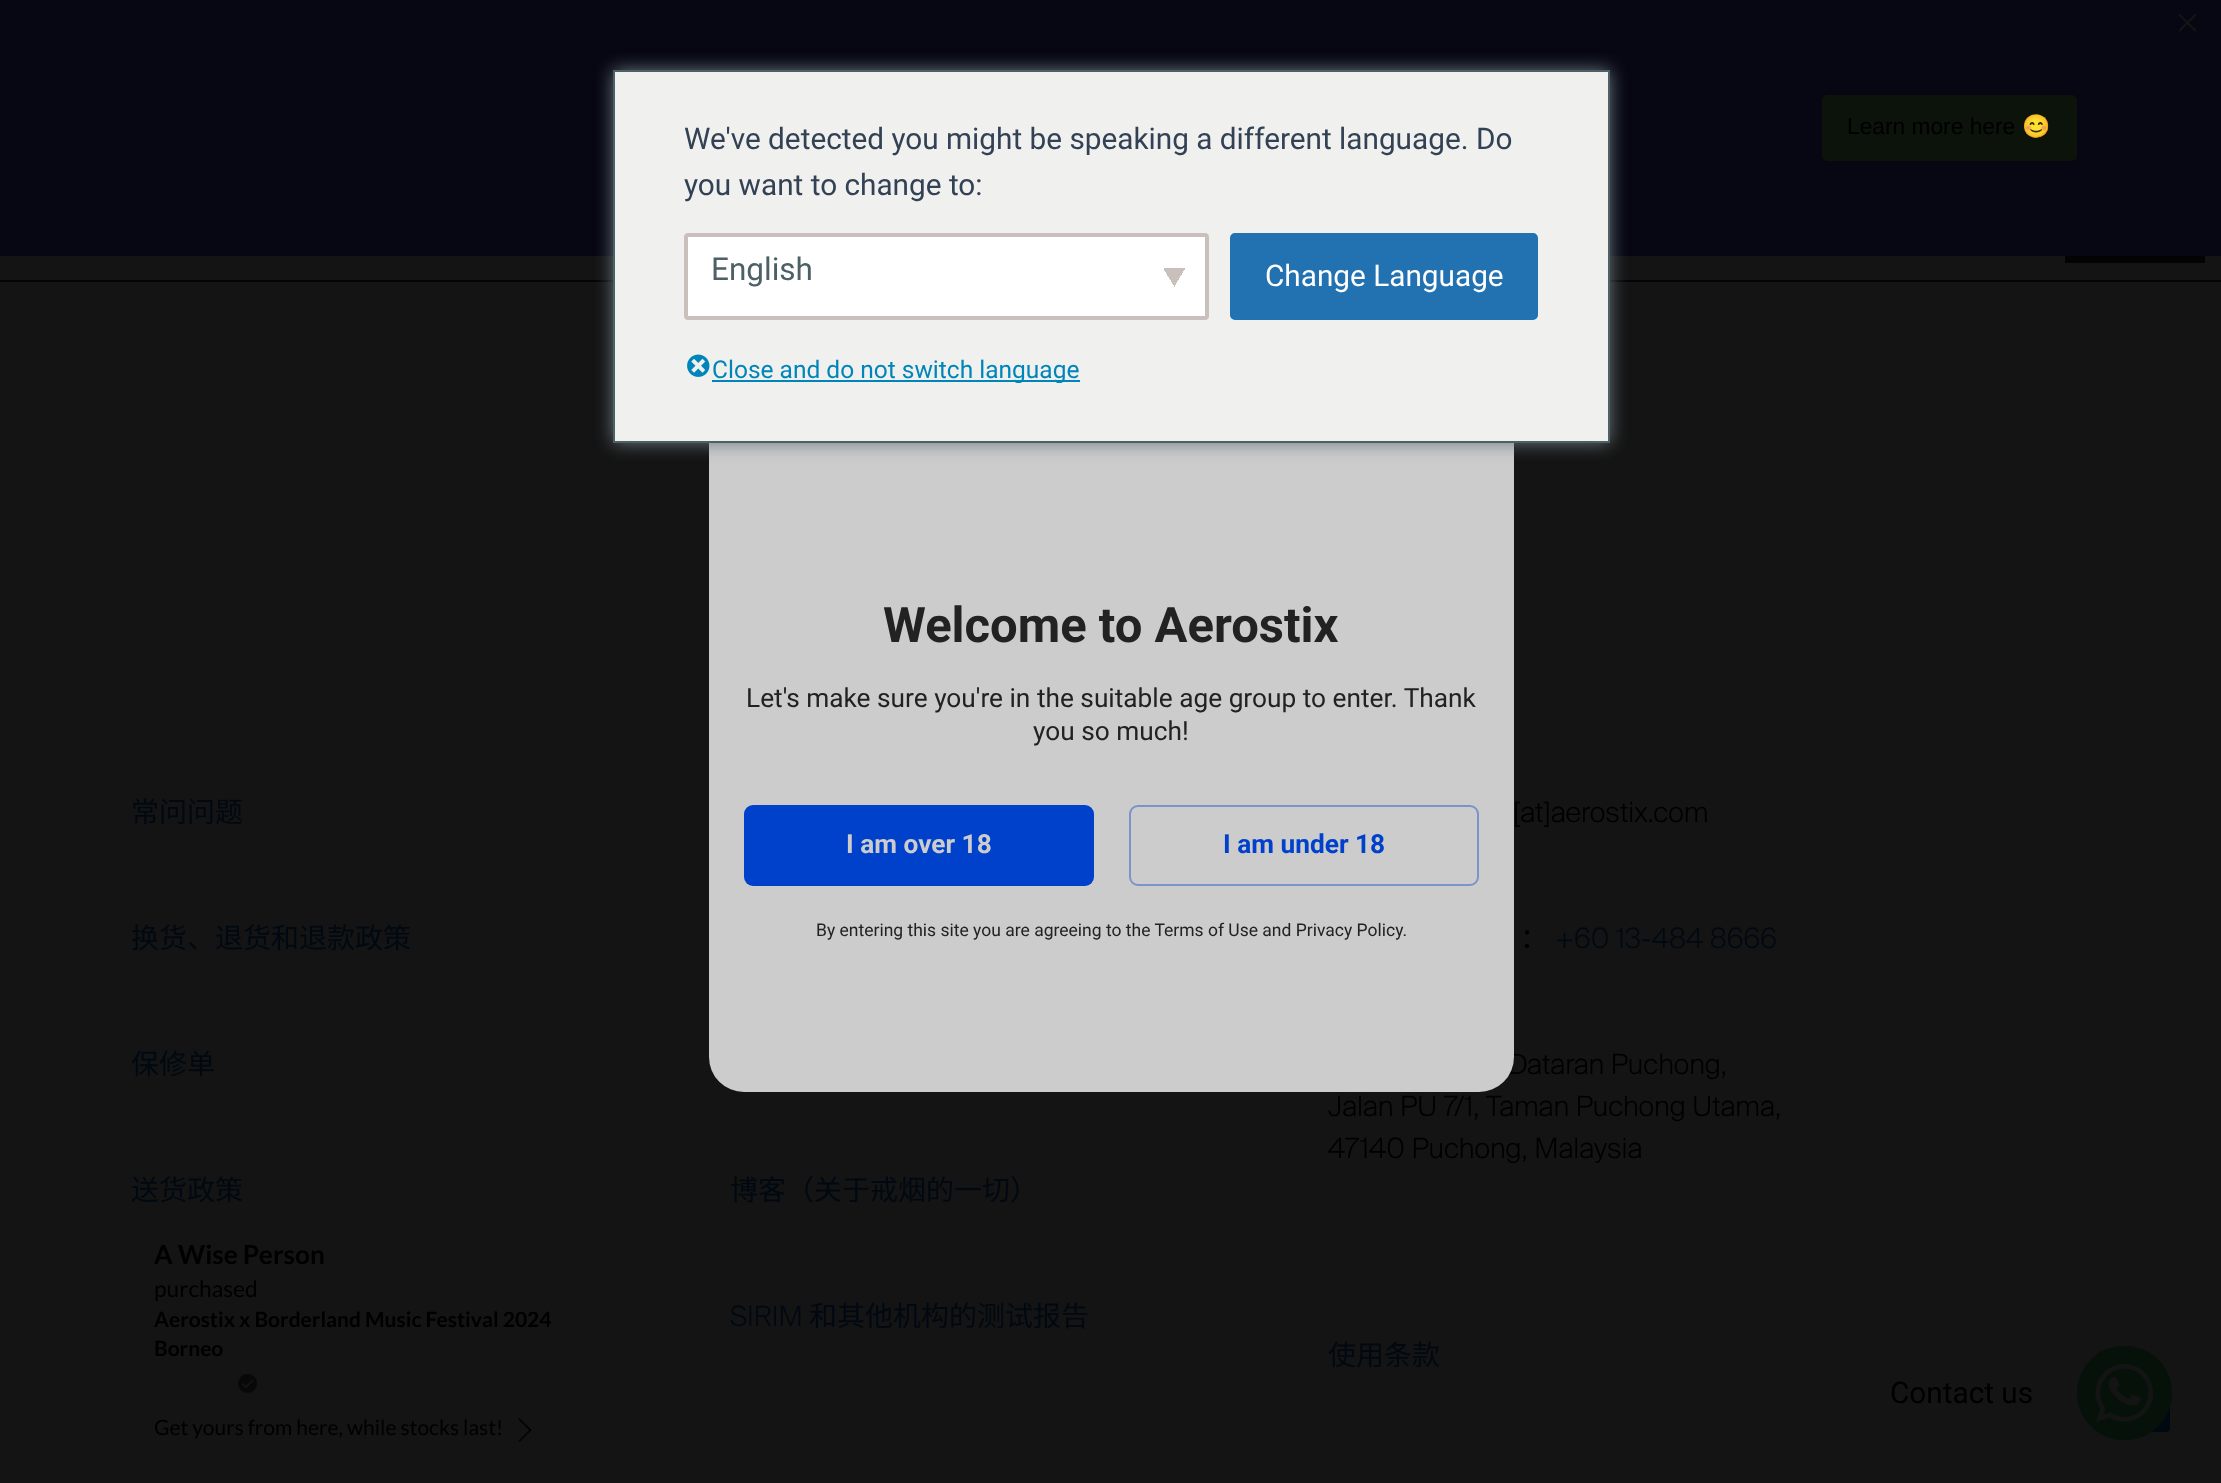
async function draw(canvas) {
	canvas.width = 2221;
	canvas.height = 1483;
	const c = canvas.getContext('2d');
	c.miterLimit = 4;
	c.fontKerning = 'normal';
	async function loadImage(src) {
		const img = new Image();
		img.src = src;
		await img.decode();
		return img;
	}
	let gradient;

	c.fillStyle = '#141414';
	c.fillRect(0, 0, 2221, 1483);
	c.fillStyle = '#060712';
	c.fillRect(0, 0, 2221, 256);
	c.font = '300 28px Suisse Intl';
	c.fillStyle = '#000';
	c.fillText('Dataran Puchong,', 1508, 1074);
	c.fillStyle = '#ccc';
	c.beginPath();
	c.roundRect(709, 392, 805, 700, 35);
	c.fill();
	c.fillStyle = '#040506';
	c.fillRect(0, 280, 2221, 2);
	c.fillStyle = '#6c7781';
	c.filter = 'blur(9px)';
	c.beginPath();
	c.rect(613, 70, 997, 373);
	c.fill();
	c.filter = 'none';
	c.fillStyle = '#f0f0ee';
	c.beginPath();
	c.rect(614, 71, 995, 371);
	c.fill();
	c.strokeStyle = '#4c6066';
	c.lineWidth = 2;
	c.stroke();
	c.font = '29.75px Roboto';
	c.fillStyle = '#334155';
	c.fillText('We\'ve detected you might be speaking a different language. Do', 684, 149);
	c.fillText('you want to change to:', 684, 195);
	c.fillStyle = '#fff';
	c.beginPath();
	c.roundRect(684, 233, 525, 87, 4);
	c.fill();
	gradient = c.createLinearGradient(1171, 273, 1188, 283);
	gradient.addColorStop(0.5, '#c9c0bb');
	gradient.addColorStop(0.5, '#fff');
	c.fillStyle = gradient;
	c.fillRect(1174, 268, 11, 19);
	gradient = c.createLinearGradient(1161, 283, 1177, 273);
	gradient.addColorStop(0.5, '#fff');
	gradient.addColorStop(0.5, '#c9c0bb');
	c.fillStyle = gradient;
	c.fillRect(1164, 268, 10, 17);
	c.beginPath();
	c.roundRect(686, 235, 521, 83, 2);
	c.strokeStyle = '#c9c0bb';
	c.lineWidth = 4;
	c.stroke();
	c.font = '31.5px Roboto';
	c.fillStyle = '#4c6066';
	c.fillText('English', 711, 280);
	c.fillStyle = '#2271b1';
	c.beginPath();
	c.roundRect(1231, 234, 306, 85, 4);
	c.fill();
	c.strokeStyle = '#2271b1';
	c.lineWidth = 2;
	c.stroke();
	c.font = '29.75px Roboto';
	c.fillStyle = '#fff';
	c.fillText('Change Language', 1265, 286);
	c.drawImage(await loadImage('img1.png'), 687, 354, 23, 23);
	c.fillStyle = '#0085ba';
	c.fillRect(712, 380, 368, 2);
	c.font = '24.5px Roboto';
	c.fillText('Close and do not switch language', 712, 378);
	c.drawImage(await loadImage('img2.png'), 2179, 14, 17, 18);
	c.fillStyle = '#0c0314';
	c.fillRect(1822, 95, 255, 66);
	c.fillStyle = '#0b130b';
	c.beginPath();
	c.roundRect(1822, 95, 255, 66, 5);
	c.fill();
	c.font = '22.75px Liberation Sans';
	c.fillStyle = '#000';
	c.fillText('Learn more here', 1847, 134);
	c.font = '22.75px Noto Color Emoji';
	c.fillText('😊', 2022, 134);
	c.font = 'bold 49px Roboto';
	c.fillStyle = '#222';
	c.fillText('Welcome to Aerostix', 883, 642);
	c.font = '26.25px Roboto';
	c.fillText('Let\'s make sure you\'re in the suitable age group to enter. Thank', 746, 707);
	c.fillText('you so much!', 1033, 740);
	c.fillStyle = '#0041cc';
	c.beginPath();
	c.roundRect(744, 805, 350, 81, 9);
	c.fill();
	c.font = 'bold 26.25px Roboto';
	c.fillStyle = '#ccc';
	c.fillText('I am over 18', 846, 853);
	c.beginPath();
	c.roundRect(1130, 806, 348, 79, 8);
	c.strokeStyle = '#7a94cc';
	c.stroke();
	c.fillStyle = '#0041cc';
	c.fillText('I am under 18', 1223, 853);
	c.font = '17.5px Roboto';
	c.fillStyle = '#222';
	c.fillText('By entering this site you are agreeing to the Terms of Use and Privacy Policy.', 816, 936);
	c.fillStyle = '#030303';
	c.fillRect(2065, 256, 140, 7);
	c.font = '28px Noto Sans CJK SC';
	c.fillStyle = '#000911';
	for (const [text, x, y] of [
		['常问问题', 131, 822],
		['换货、退货和退款政策', 131, 948],
		['保修单', 131, 1074],
		['送货政策', 131, 1200],
		['博客（关于戒烟的一切）', 730, 1200],
	]) {
		c.fillText(text, x, y);
	}
	c.font = '300 28px Suisse Intl';
	c.fillText('SIRIM', 730, 1326);
	c.font = '28px Noto Sans CJK SC';
	c.fillText('和其他机构的测试报告', 809, 1326);
	c.font = '300 28px Suisse Intl';
	c.fillStyle = '#000';
	c.fillText('[at]aerostix.com', 1513, 822);
	c.font = '28px Noto Sans CJK SC';
	c.fillText('：', 1520, 948);
	c.font = '300 28px Suisse Intl';
	c.fillStyle = '#000911';
	c.fillText('+60 13-484 8666', 1555, 948);
	c.fillStyle = '#000';
	c.fillText('Jalan PU 7/1, Taman Puchong Utama,', 1328, 1116);
	c.fillText('47140 Puchong, Malaysia', 1328, 1158);
	c.font = '28px Noto Sans CJK SC';
	c.fillStyle = '#000911';
	c.fillText('使用条款', 1328, 1365);
	c.font = 'bold 26.25px Lato';
	c.fillStyle = '#000';
	c.fillText('A Wise Person', 154, 1264);
	c.font = '22.75px Lato';
	c.fillText('purchased', 154, 1297);
	c.font = 'bold 21px Lato';
	c.fillText('Aerostix x Borderland Music Festival 2024', 154, 1327);
	c.fillText('Borneo', 154, 1356);
	c.drawImage(await loadImage('img3.png'), 238, 1373, 20, 20);
	c.font = '21px Lato';
	c.fillText('Get yours from here, while stocks last!', 154, 1435);
	c.fillStyle = '#000402';
	c.beginPath();
	c.moveTo(519.5, 1418);
	c.lineTo(531.5, 1430);
	c.lineTo(530.5, 1431.5);
	c.lineTo(518.5, 1419.5);
	c.closePath();
	c.fill();
	c.beginPath();
	c.moveTo(530.5, 1429);
	c.lineTo(531.5, 1430);
	c.lineTo(519.5, 1442);
	c.lineTo(518.5, 1441);
	c.closePath();
	c.fill();
	c.font = '29.75px Roboto';
	c.fillStyle = '#000';
	c.fillText('Contact us', 1890, 1403);
	c.fillStyle = '#000911';
	c.beginPath();
	c.roundRect(2116, 1377, 54, 55, 4);
	c.fill();
	c.fillStyle = '#061209';
	c.beginPath();
	c.roundRect(2077, 1346, 95, 94, 47);
	c.fill();
	c.drawImage(await loadImage('img4.png'), 2077, 1346, 95, 94);
}

draw(document.querySelector('canvas'));
